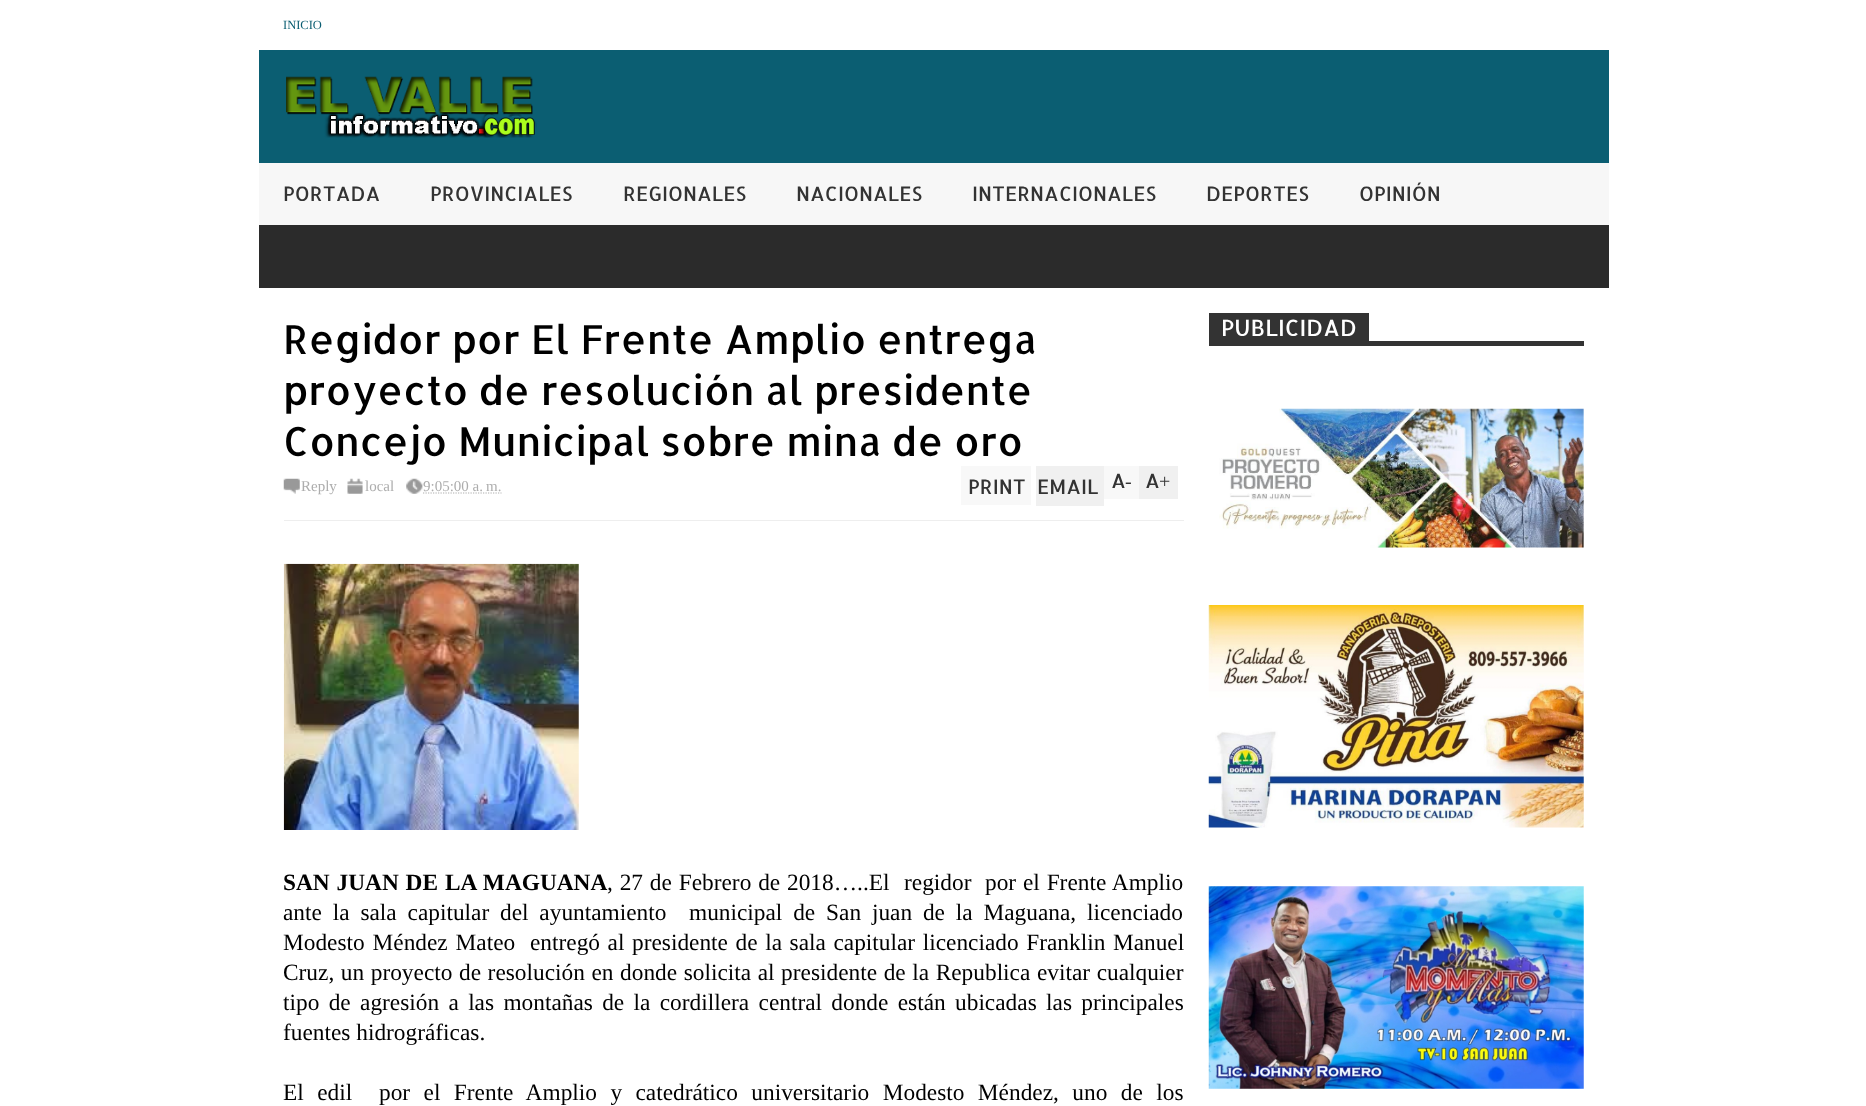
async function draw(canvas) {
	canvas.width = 1866;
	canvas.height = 1106;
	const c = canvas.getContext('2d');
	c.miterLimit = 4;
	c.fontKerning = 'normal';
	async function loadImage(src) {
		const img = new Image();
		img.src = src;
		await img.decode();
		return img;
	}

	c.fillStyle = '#fff';
	c.fillRect(0, 0, 1866, 1106);
	c.font = '12.5px Liberation Serif';
	c.fillStyle = '#0b5e72';
	c.fillText('INICIO', 283, 29);
	c.fillRect(259, 50, 1350, 113);
	c.drawImage(await loadImage('img1.png'), 286, 76, 251, 62);
	c.fillStyle = '#f7f7f7';
	c.fillRect(259, 163, 1350, 62);
	c.font = '20px Allerta';
	c.fillStyle = '#333';
	for (const [text, x, y] of [
		['PORTADA', 283, 201],
		['PROVINCIALES', 430, 201],
		['REGIONALES', 623, 201],
		['NACIONALES', 796, 201],
		['INTERNACIONALES', 972, 201],
		['DEPORTES', 1206, 201],
		['OPINIÓN', 1359, 201],
	]) {
		c.fillText(text, x, y);
	}
	c.fillStyle = '#2b2b2b';
	c.fillRect(259, 225, 1350, 63);
	c.font = '40px Allerta';
	c.fillStyle = '#000';
	for (const [text, x, y] of [
		['Regidor por El Frente Amplio entrega', 283, 354],
		['proyecto de resolución al presidente', 283, 405],
		['Concejo Municipal sobre mina de oro', 283, 456],
	]) {
		c.fillText(text, x, y);
	}
	c.drawImage(await loadImage('img2.png'), 283, 478, 17, 16);
	c.font = '15px Liberation Serif';
	c.fillStyle = '#adadad';
	c.fillText('Reply', 301, 491);
	c.drawImage(await loadImage('img3.png'), 347, 478, 16, 16);
	c.fillText('local', 365, 491);
	c.drawImage(await loadImage('img4.png'), 406, 478, 17, 16);
	c.fillText('9:05:00 a. m.', 423, 491);
	c.beginPath();
	c.moveTo(423, 493);
	c.lineTo(501.5, 493);
	c.strokeStyle = '#adadad';
	c.lineWidth = 1.2;
	c.setLineDash([1.25, 1.25]);
	c.stroke();
	c.fillStyle = '#f8f8f8';
	c.fillRect(961, 466, 70, 39);
	c.font = '20px Allerta';
	c.fillStyle = '#333';
	c.fillText('PRINT', 968, 494);
	c.fillStyle = '#f0f0f0';
	c.fillRect(1036, 466, 68, 40);
	c.fillStyle = '#333';
	c.fillText('EMAIL', 1037, 494);
	c.fillStyle = '#f8f8f8';
	c.fillRect(1104, 466, 35, 33);
	c.fillStyle = '#333';
	c.fillText('A', 1111, 488);
	c.font = '20px Liberation Serif';
	c.fillText('-', 1125, 488);
	c.fillStyle = '#f0f0f0';
	c.fillRect(1139, 466, 39, 33);
	c.font = '20px Allerta';
	c.fillStyle = '#333';
	c.fillText('A', 1145, 488);
	c.font = '20px Liberation Serif';
	c.fillText('+', 1159, 488);
	c.fillStyle = '#eee';
	c.fillRect(284, 520, 900, 1);
	c.drawImage(await loadImage('img5.png'), 283, 563, 296, 267);
	c.wordSpacing = '1px';
	c.font = 'bold 23.35px Liberation Serif';
	c.fillStyle = '#000';
	c.fillText('SAN JUAN DE LA MAGUANA', 283, 890);
	c.font = '23.35px Liberation Serif';
	c.fillText(', 27 de Febrero de 2018…..El', 607, 890);
	c.wordSpacing = '0px';
	c.fillText('regidor', 904, 890);
	c.wordSpacing = '1px';
	c.fillText('por el Frente Amplio', 985, 890);
	c.wordSpacing = '5px';
	c.fillText('ante la sala capitular del ayuntamiento', 283, 920);
	c.fillText('municipal de San juan de la Maguana, licenciado', 689, 920);
	c.wordSpacing = '2px';
	c.fillText('Modesto Méndez Mateo', 283, 950);
	c.wordSpacing = '1.75px';
	c.fillText('entregó al presidente de la sala capitular licenciado Franklin Manuel', 530, 950);
	c.wordSpacing = '0.75px';
	c.fillText('Cruz, un proyecto de resolución en donde solicita al presidente de la Republica evitar cualquier', 283, 980);
	c.wordSpacing = '3.5px';
	c.fillText('tipo de agresión a las montañas de la cordillera central donde están ubicadas las principales', 283, 1010);
	c.wordSpacing = '0px';
	c.fillText('fuentes hidrográficas.', 283, 1040);
	c.wordSpacing = '7.6px';
	c.fillText('El edil', 283, 1100);
	c.fillText('por el Frente Amplio y catedrático universitario Modesto Méndez, uno de los', 379, 1100);
	c.fillStyle = '#333';
	c.fillRect(1209, 341, 375, 5);
	c.fillRect(1209, 313, 160, 28);
	c.wordSpacing = '0px';
	c.font = '22.5px Allerta';
	c.fillStyle = '#fff';
	c.fillText('PUBLICIDAD', 1221, 336);
	c.drawImage(await loadImage('img6.png'), 1219, 408, 365, 140);
	c.drawImage(await loadImage('img7.png'), 1208, 605, 376, 223);
	c.drawImage(await loadImage('img8.png'), 1208, 886, 376, 203);
}

draw(document.querySelector('canvas'));
